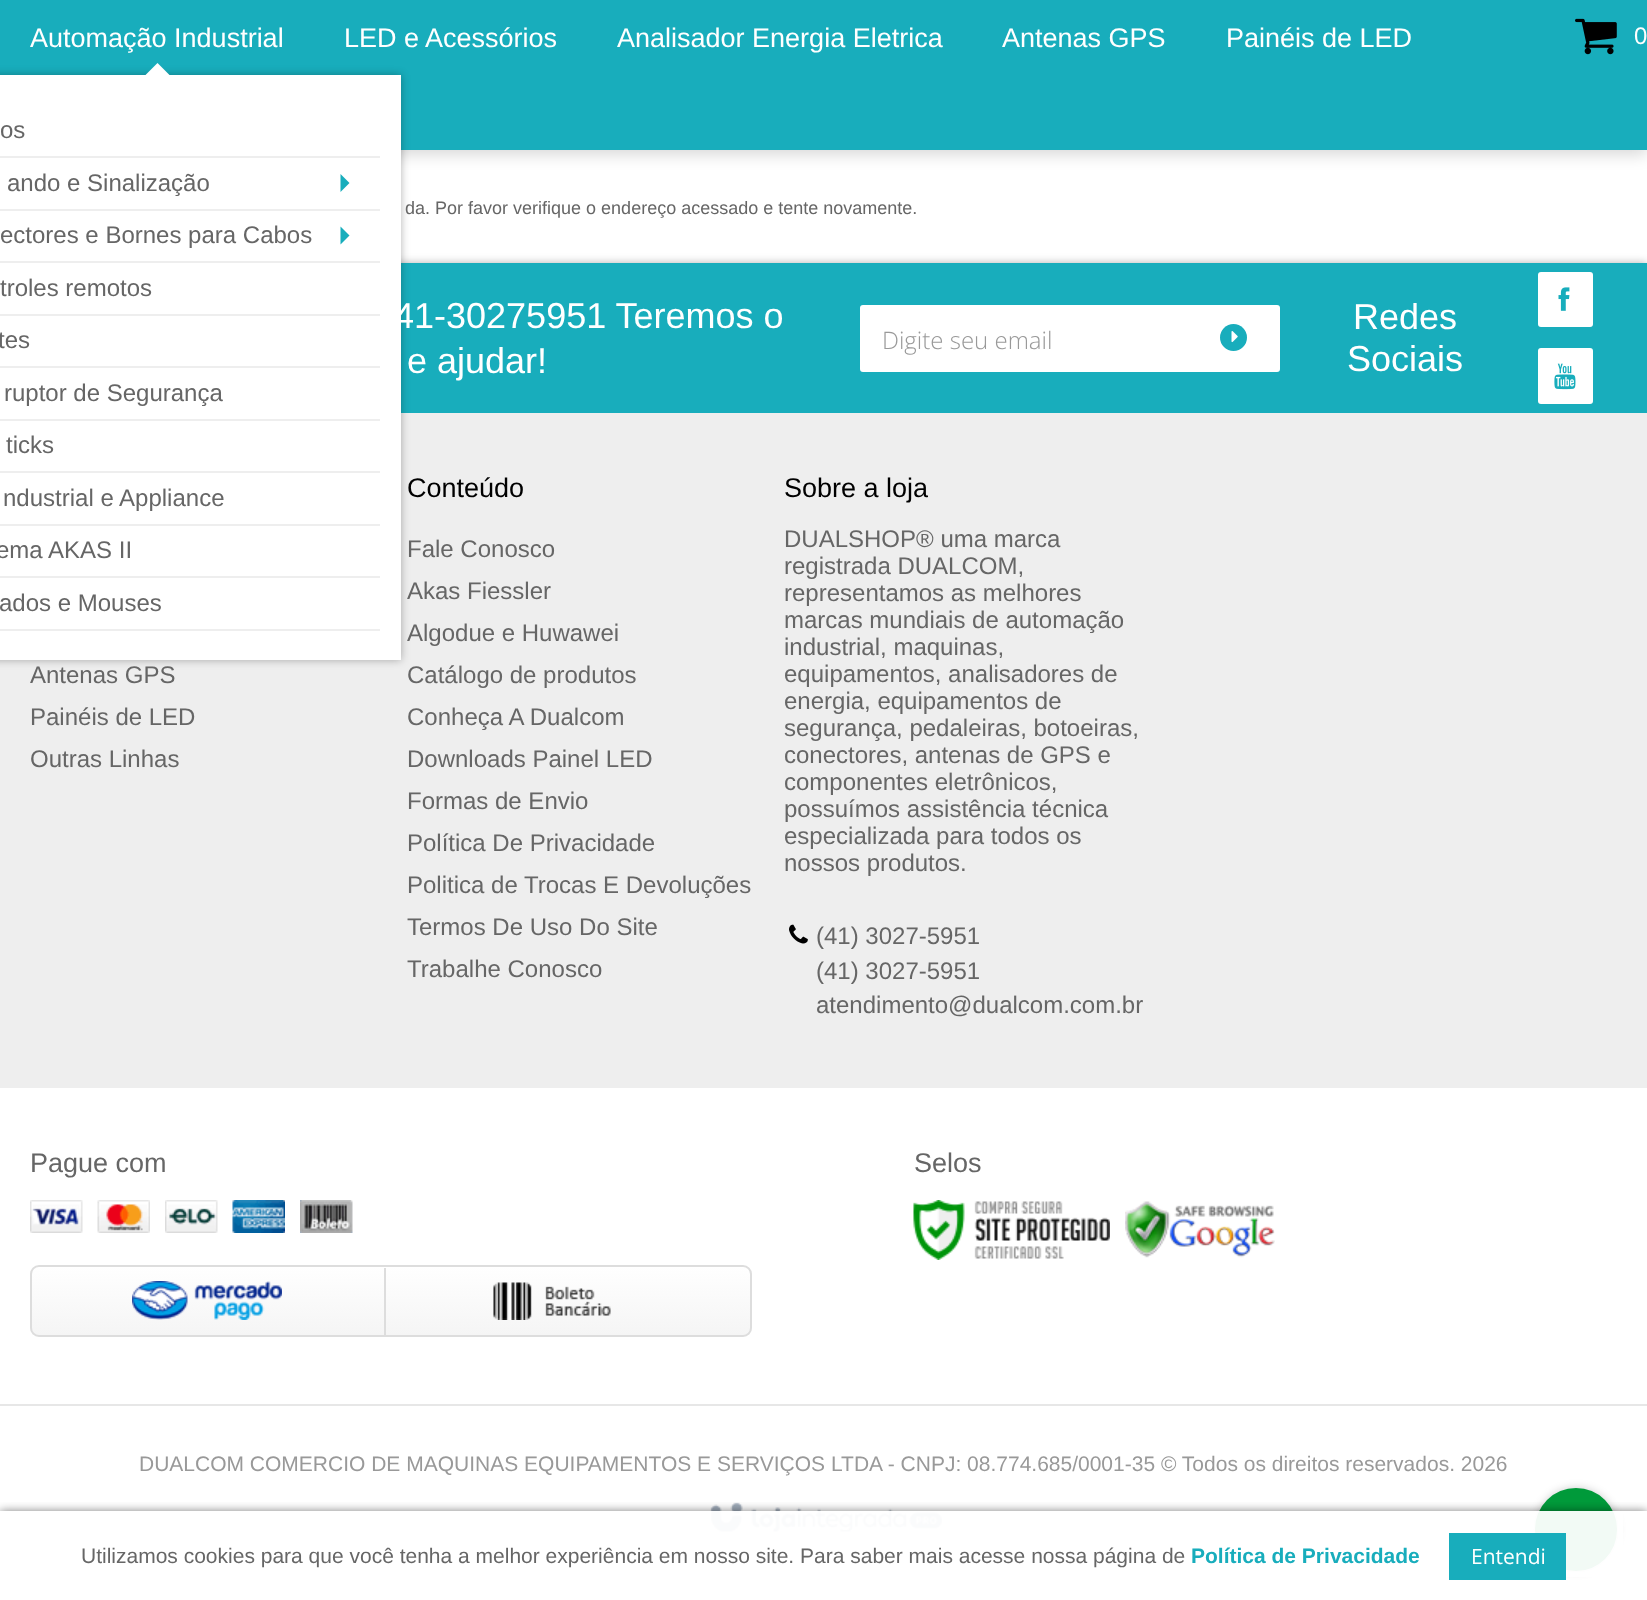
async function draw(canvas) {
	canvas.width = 1647;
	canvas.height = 1600;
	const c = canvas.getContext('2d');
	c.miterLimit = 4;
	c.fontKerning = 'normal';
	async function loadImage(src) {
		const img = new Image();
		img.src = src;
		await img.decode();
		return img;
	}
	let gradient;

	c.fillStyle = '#fff';
	c.fillRect(0, 0, 1647, 1600);
	c.fillStyle = '#00000026';
	c.filter = 'blur(7.5px)';
	c.beginPath();
	c.rect(0, 5, 1647, 150);
	c.fill();
	c.filter = 'none';
	c.fillStyle = '#18adbc';
	c.fillRect(0, 0, 1647, 150);
	c.font = '27px Liberation Sans';
	c.fillStyle = '#fff';
	c.fillText('Automação Industrial', 30, 47);
	c.fillStyle = '#0000004d';
	c.filter = 'blur(4px)';
	c.beginPath();
	c.rect(0, 263, 1647, 150);
	c.fill();
	c.filter = 'none';
	c.fillStyle = '#18adbc';
	c.fillRect(401, 263, 1246, 150);
	c.fillStyle = '#eee';
	c.fillRect(0, 413, 1647, 675);
	c.fillStyle = '#0000004d';
	c.filter = 'blur(4px)';
	c.beginPath();
	c.rect(-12, 75, 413, 585);
	c.fill();
	c.filter = 'none';
	c.fillStyle = '#fff';
	c.fillRect(0, 75, 401, 585);
	c.beginPath();
	c.moveTo(169.5, 75);
	c.lineTo(145.5, 75);
	c.lineTo(157.5, 63);
	c.closePath();
	c.fill();
	c.font = '24px Liberation Sans';
	c.fillStyle = '#666';
	c.fillText('os', 0, 138);
	c.fillStyle = '#eee';
	c.fillRect(0, 156, 380, 2);
	c.fillStyle = '#666';
	c.fillText('ando e Sinalização', 7, 191);
	c.fillStyle = '#18adbc';
	c.beginPath();
	c.moveTo(340.5, 192);
	c.lineTo(340.5, 174);
	c.lineTo(349.5, 183);
	c.closePath();
	c.fill();
	c.fillStyle = '#eee';
	c.fillRect(0, 209, 380, 2);
	c.fillStyle = '#666';
	c.fillText('ectores e Bornes para Cabos', 0, 243);
	c.fillStyle = '#18adbc';
	c.beginPath();
	c.moveTo(340.5, 244.5);
	c.lineTo(340.5, 226.5);
	c.lineTo(349.5, 235.5);
	c.closePath();
	c.fill();
	c.fillStyle = '#eee';
	c.fillRect(0, 261, 380, 2);
	c.fillStyle = '#666';
	c.fillText('troles remotos', 0, 296);
	c.fillStyle = '#eee';
	c.fillRect(0, 314, 380, 2);
	c.fillStyle = '#666';
	c.fillText('tes', -2, 348);
	c.fillStyle = '#eee';
	c.fillRect(0, 366, 380, 2);
	c.fillStyle = '#666';
	c.fillText('ruptor de Segurança', 4, 401);
	c.fillStyle = '#eee';
	c.fillRect(0, 419, 380, 2);
	c.fillStyle = '#666';
	c.fillText('ticks', 6, 453);
	c.fillStyle = '#eee';
	c.fillRect(0, 471, 380, 2);
	c.fillStyle = '#666';
	c.fillText('ndustrial e Appliance', 3, 506);
	c.fillStyle = '#eee';
	c.fillRect(0, 524, 380, 2);
	c.fillStyle = '#666';
	c.fillText('ema AKAS II', -4, 558);
	c.fillStyle = '#eee';
	c.fillRect(0, 576, 380, 2);
	c.fillRect(0, 629, 380, 2);
	c.fillStyle = '#666';
	c.fillText('ados e Mouses', -1, 611);
	c.font = '27px Liberation Sans';
	c.fillStyle = '#fff';
	for (const [text, x, y] of [
		['LED e Acessórios', 344, 47],
		['Analisador Energia Eletrica', 617, 47],
		['Antenas GPS', 1002, 47],
		['Painéis de LED', 1226, 47],
	]) {
		c.fillText(text, x, y);
	}
	c.drawImage(await loadImage('img1.png'), 1575, 18, 42, 37);
	c.font = '24px Liberation Sans';
	c.fillText('0', 1634, 44);
	c.font = '18px Liberation Sans';
	c.fillStyle = '#666';
	c.fillText('da. Por favor verifique o endereço acessado e tente novamente.', 405, 214);
	c.font = '36px Liberation Sans';
	c.fillStyle = '#fff';
	c.fillText('41-30275951 Teremos o', 394, 328);
	c.fillText('e ajudar!', 407, 373);
	c.beginPath();
	c.roundRect(860, 305, 420, 67, 3);
	c.fill();
	c.font = '300 24px Open Sans';
	c.fillStyle = '#999';
	c.fillText('Digite seu email', 882, 349);
	c.fillStyle = '#18adbc';
	c.beginPath();
	c.arc(1233.5, 337.5, 13.5, 0, 2 * Math.PI);
	c.fill();
	c.drawImage(await loadImage('img2.png'), 1231, 331, 7, 12);
	c.font = '36px Liberation Sans';
	c.fillStyle = '#fff';
	c.fillText('Redes', 1353, 329);
	c.fillText('Sociais', 1347, 371);
	c.beginPath();
	c.roundRect(1538, 272, 55, 55, 3);
	c.fill();
	c.drawImage(await loadImage('img3.png'), 1558, 287, 12, 24);
	c.beginPath();
	c.roundRect(1538, 348, 55, 56, 3);
	c.fill();
	c.drawImage(await loadImage('img4.png'), 1554, 363, 22, 27);
	c.font = '24px Liberation Sans';
	c.fillStyle = '#666';
	for (const [text, x, y] of [
		['Antenas GPS', 30, 683],
		['Painéis de LED', 30, 725],
		['Outras Linhas', 30, 767],
	]) {
		c.fillText(text, x, y);
	}
	c.font = '27px Liberation Sans';
	c.fillStyle = '#000';
	c.fillText('Conteúdo', 407, 497);
	c.font = '24px Liberation Sans';
	c.fillStyle = '#666';
	for (const [text, x, y] of [
		['Fale Conosco', 407, 557],
		['Akas Fiessler', 407, 599],
		['Algodue e Huwawei', 407, 641],
		['Catálogo de produtos', 407, 683],
		['Conheça A Dualcom', 407, 725],
		['Downloads Painel LED', 407, 767],
		['Formas de Envio', 407, 809],
		['Política De Privacidade', 407, 851],
		['Politica de Trocas E Devoluções', 407, 893],
		['Termos De Uso Do Site', 407, 935],
		['Trabalhe Conosco', 407, 977],
	]) {
		c.fillText(text, x, y);
	}
	c.font = '27px Liberation Sans';
	c.fillStyle = '#000';
	c.fillText('Sobre a loja', 784, 497);
	c.font = '24px Liberation Sans';
	c.fillStyle = '#666';
	for (const [text, x, y] of [
		['DUALSHOP® uma marca', 784, 547],
		['registrada DUALCOM,', 784, 574],
		['representamos as melhores', 784, 601],
		['marcas mundiais de automação', 784, 628],
		['industrial, maquinas,', 784, 655],
		['equipamentos, analisadores de', 784, 682],
		['energia, equipamentos de', 784, 709],
		['segurança, pedaleiras, botoeiras,', 784, 736],
		['conectores, antenas de GPS e', 784, 763],
		['componentes eletrônicos,', 784, 790],
		['possuímos assistência técnica', 784, 817],
		['especializada para todos os', 784, 844],
		['nossos produtos.', 784, 871],
	]) {
		c.fillText(text, x, y);
	}
	c.drawImage(await loadImage('img5.png'), 789, 924, 19, 20);
	for (const [text, x, y] of [
		['(41) 3027-5951', 816, 944],
		['(41) 3027-5951', 816, 979],
		['atendimento@dualcom.com.br', 816, 1013],
	]) {
		c.fillText(text, x, y);
	}
	c.font = '27px Liberation Sans';
	c.fillText('Pague com', 30, 1172);
	c.drawImage(await loadImage('img6.png'), 30, 1200, 53, 33);
	c.drawImage(await loadImage('img7.png'), 97, 1200, 53, 33);
	c.drawImage(await loadImage('img8.png'), 165, 1200, 53, 33);
	c.drawImage(await loadImage('img9.png'), 232, 1200, 53, 33);
	c.drawImage(await loadImage('img10.png'), 300, 1200, 53, 33);
	c.save();
	c.beginPath();
	c.roundRect(30, 1265, 722, 72, 9);
	c.clip();
	gradient = c.createLinearGradient(391, 1266, 391, 1335);
	gradient.addColorStop(0, '#fff');
	gradient.addColorStop(1, '#f5f5f5');
	c.fillStyle = gradient;
	c.fillRect(30, 1266, 722, 69);
	c.restore();
	c.beginPath();
	c.roundRect(31, 1266, 720, 70, 8);
	c.strokeStyle = '#ddd';
	c.lineWidth = 2;
	c.stroke();
	c.drawImage(await loadImage('img11.png'), 132, 1281, 150, 39);
	c.fillStyle = '#ddd';
	c.fillRect(384, 1268, 2, 67);
	c.drawImage(await loadImage('img12.png'), 493, 1282, 118, 38);
	c.fillStyle = '#666';
	c.fillText('Selos', 914, 1172);
	c.drawImage(await loadImage('img13.png'), 913, 1200, 197, 60);
	c.drawImage(await loadImage('img14.png'), 1125, 1201, 150, 57);
	c.fillStyle = '#e7e7e7';
	c.fillRect(0, 1404, 1647, 2);
	c.font = '21px Liberation Sans';
	c.fillStyle = '#999';
	c.fillText('DUALCOM COMERCIO DE MAQUINAS EQUIPAMENTOS E SERVIÇOS LTDA - CNPJ: 08.774.685/0001-35 © Todos os direitos reservados. 2026', 139, 1471);
	c.drawImage(await loadImage('img15.png'), 710, 1502, 233, 30);
	c.fillStyle = '#00000033';
	c.filter = 'blur(4px)';
	c.beginPath();
	c.roundRect(1535, 1488, 82, 83, 41);
	c.fill();
	c.filter = 'none';
	c.fillStyle = '#009a3a';
	c.beginPath();
	c.roundRect(1535, 1488, 82, 83, 41);
	c.fill();
	c.save();
	c.beginPath();
	c.rect(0, 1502, 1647, 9);
	c.clip();
	c.fillStyle = '#00000080';
	c.filter = 'blur(5px)';
	c.beginPath();
	c.rect(0, 1511, 1647, 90);
	c.fill();
	c.filter = 'none';
	c.restore();
	c.fillStyle = '#fffffff2';
	c.fillRect(710, 1511, 913, 66);
	c.fillStyle = '#666';
	c.fillText('Utilizamos cookies para que você tenha a melhor experiência em nosso site. Para saber mais acesse nossa página de', 81, 1563);
	c.font = 'bold 21px Liberation Sans';
	c.fillStyle = '#18adbc';
	c.fillText('Política de Privacidade', 1191, 1563);
	c.fillRect(1449, 1533, 117, 47);
	c.font = '21px Open Sans';
	c.fillStyle = '#fff';
	c.fillText('Entendi', 1471, 1564);
}

draw(document.querySelector('canvas'));
